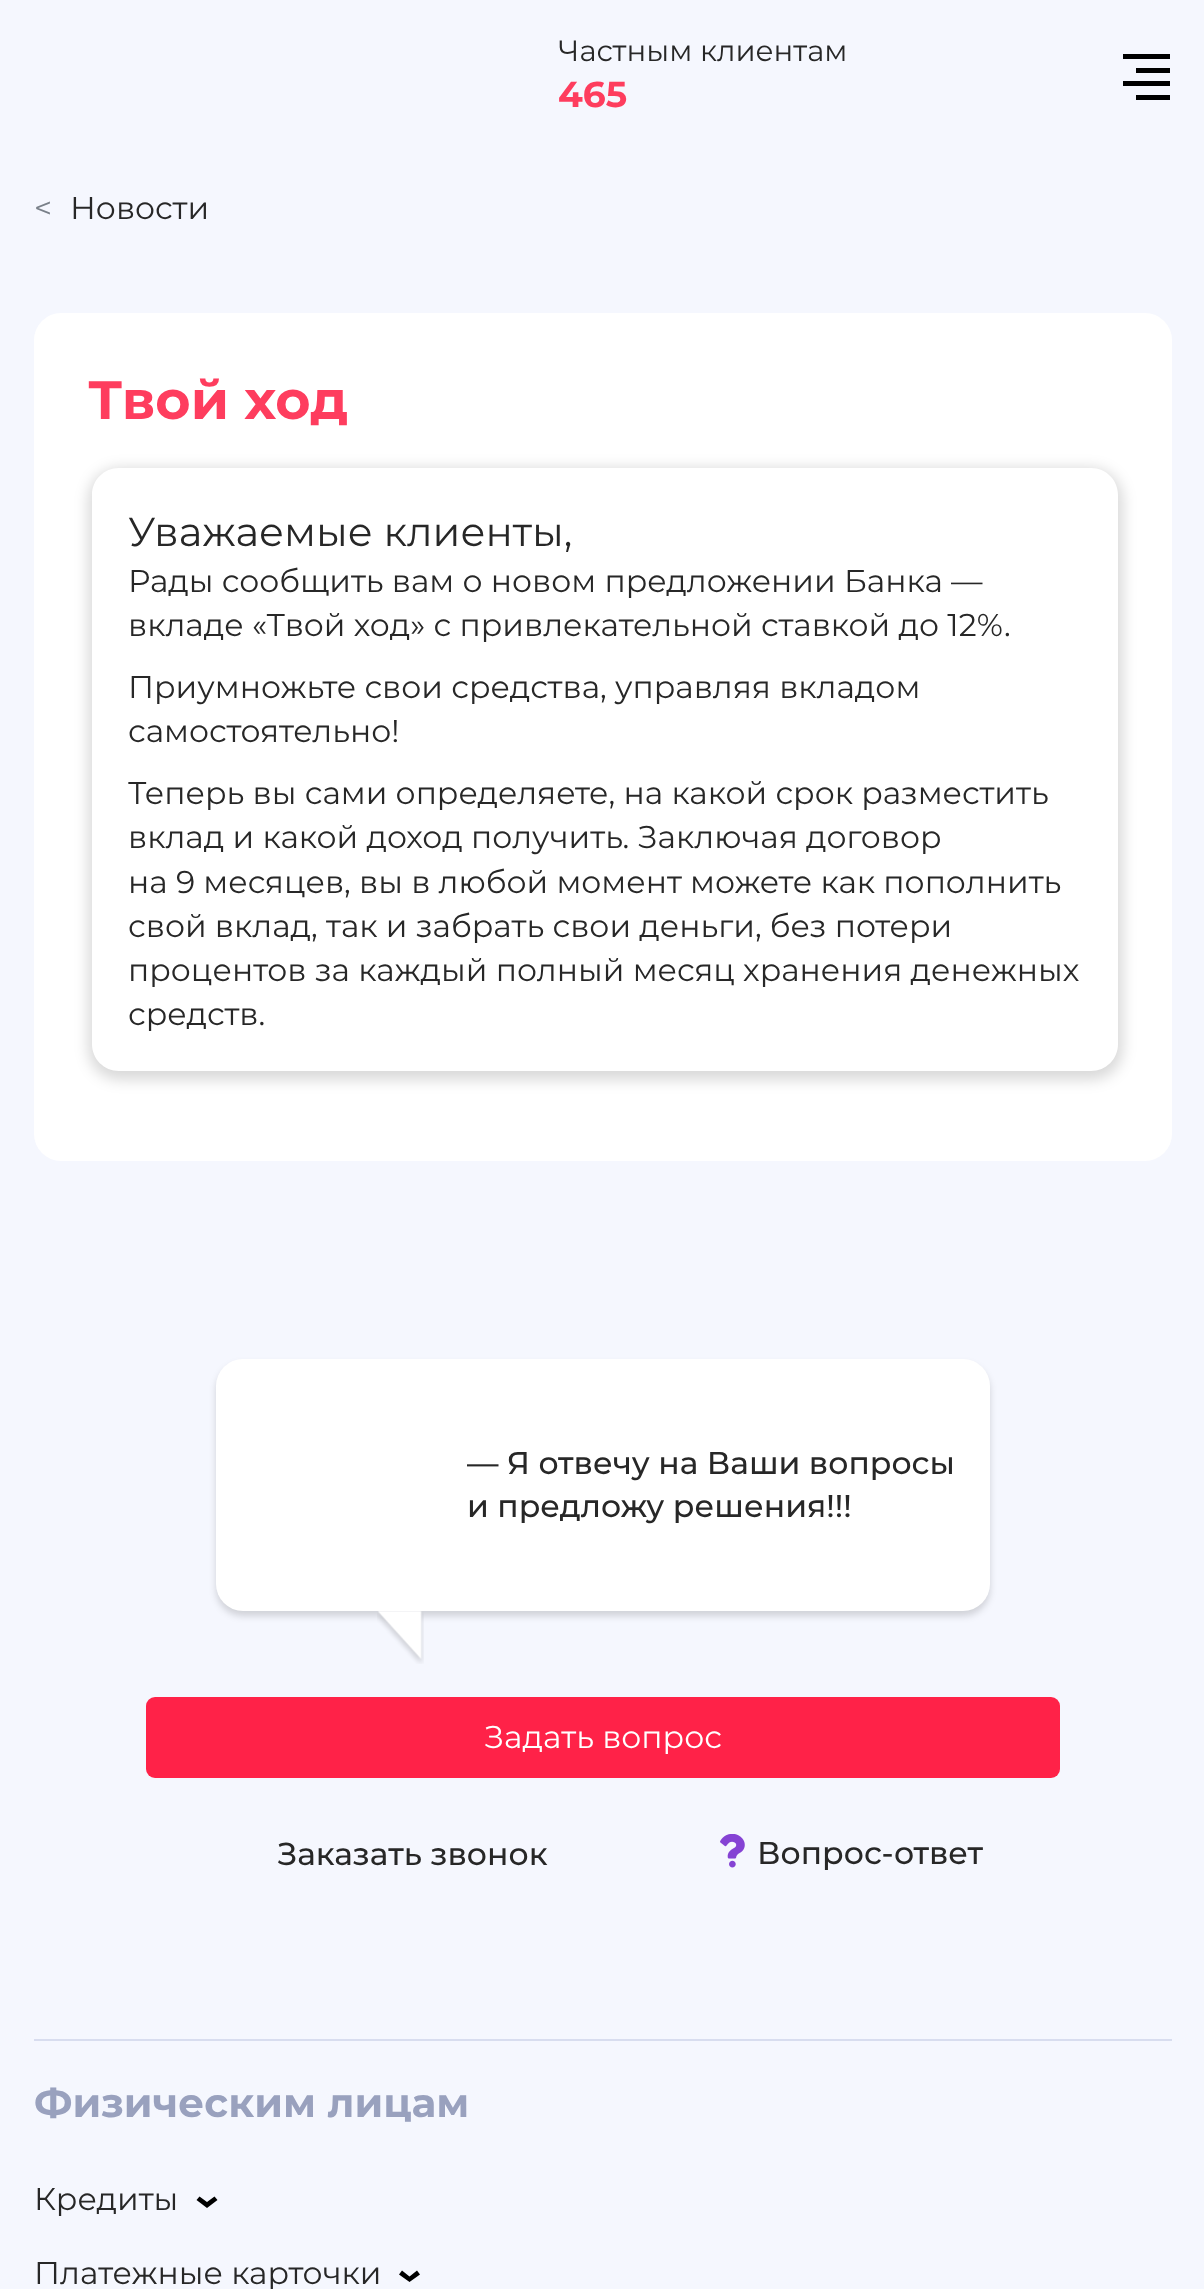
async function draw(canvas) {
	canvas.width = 1204;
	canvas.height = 2289;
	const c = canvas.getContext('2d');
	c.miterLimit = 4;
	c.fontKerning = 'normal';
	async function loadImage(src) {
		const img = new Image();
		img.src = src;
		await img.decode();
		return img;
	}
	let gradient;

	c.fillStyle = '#f5f7fe';
	c.fillRect(0, 0, 1204, 2289);
	c.font = '29.25px Montserrat';
	c.fillStyle = '#272727';
	c.fillText('Частным клиентам', 558, 61);
	c.font = 'bold 36px Montserrat';
	c.fillStyle = '#fe3d5e';
	c.fillText('465', 558, 107);
	for (const [x, y, w, h, color] of [
		[1123, 54, 47, 5, '#000'],
		[1136, 68, 34, 5, '#000'],
		[1123, 81, 47, 5, '#000'],
		[1136, 95, 34, 5, '#000'],
	]) {
		c.fillStyle = color;
		c.fillRect(x, y, w, h);
	}
	c.font = '31.5px Montserrat';
	c.fillStyle = '#798089';
	c.fillText('<', 34, 219);
	c.fillStyle = '#272727';
	c.fillText('Новости', 70, 219);
	c.fillStyle = '#fff';
	c.beginPath();
	c.roundRect(34, 313, 1138, 848, 27);
	c.fill();
	c.font = 'bold 54px Montserrat';
	c.fillStyle = '#fe3d5e';
	c.fillText('Твой ход', 88, 419);
	c.save();
	c.beginPath();
	c.moveTo(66, 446);
	c.lineTo(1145, 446);
	c.lineTo(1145, 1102);
	c.lineTo(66, 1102);
	c.closePath();
	c.moveTo(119, 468);
	c.lineTo(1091, 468);
	c.bezierCurveTo(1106, 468, 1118, 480, 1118, 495);
	c.lineTo(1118, 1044);
	c.bezierCurveTo(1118, 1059, 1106, 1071, 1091, 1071);
	c.lineTo(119, 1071);
	c.bezierCurveTo(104, 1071, 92, 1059, 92, 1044);
	c.lineTo(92, 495);
	c.bezierCurveTo(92, 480, 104, 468, 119, 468);
	c.closePath();
	c.clip('evenodd');
	c.fillStyle = '#00000026';
	c.filter = 'blur(7px)';
	c.beginPath();
	c.roundRect(88, 468, 1035, 612, 32);
	c.fill();
	c.filter = 'none';
	c.restore();
	c.font = '40.5px Montserrat';
	c.fillStyle = '#272727';
	c.fillText('Уважаемые клиенты,', 128, 546);
	c.font = '31.5px Montserrat';
	for (const [text, x, y] of [
		['Рады сообщить вам о новом предложении Банка —', 128, 592],
		['вкладе «Твой ход» с привлекательной ставкой до 12%.', 128, 636],
		['Приумножьте свои средства, управляя вкладом', 128, 698],
		['самостоятельно!', 128, 742],
		['Теперь вы сами определяете, на какой срок разместить', 128, 804],
		['вклад и какой доход получить. Заключая договор', 128, 848],
		['на 9 месяцев, вы в любой момент можете как пополнить', 128, 893],
		['свой вклад, так и забрать свои деньги, без потери', 128, 937],
		['процентов за каждый полный месяц хранения денежных', 128, 981],
		['средств.', 128, 1025],
	]) {
		c.fillText(text, x, y);
	}
	c.fillStyle = '#00000026';
	c.filter = 'blur(3.5px)';
	c.beginPath();
	c.roundRect(216, 1364, 774, 252, 27);
	c.fill();
	c.filter = 'none';
	c.fillStyle = '#fff';
	c.beginPath();
	c.roundRect(216, 1359, 774, 252, 27);
	c.fill();
	c.font = '500 31.5px Montserrat';
	c.fillStyle = '#272727';
	c.fillText('— Я отвечу на Ваши вопросы', 467, 1474);
	c.fillText('и предложу решения!!!', 467, 1517);
	c.drawImage(await loadImage('img1.png'), 377, 1611, 47, 53);
	gradient = c.createLinearGradient(-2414, 1737, 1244, 1737);
	gradient.addColorStop(0.1, '#ff7373');
	gradient.addColorStop(0.5, '#ff2248');
	c.fillStyle = gradient;
	c.beginPath();
	c.roundRect(146, 1697, 914, 81, 9);
	c.fill();
	c.font = '31.5px Montserrat';
	c.fillStyle = '#fff';
	c.fillText('Задать вопрос', 484, 1748);
	c.font = '500 31.5px Montserrat';
	c.fillStyle = '#272727';
	c.fillText('Заказать звонок', 277, 1865);
	c.drawImage(await loadImage('img2.png'), 720, 1834, 25, 34);
	c.fillText('Вопрос-ответ', 757, 1864);
	c.fillStyle = '#d8ddef';
	c.fillRect(34, 2039, 1138, 2);
	c.font = 'bold 40.5px Montserrat';
	c.fillStyle = '#99a1be';
	c.fillText('Физическим лицам', 34, 2117);
	c.font = '31.5px Montserrat';
	c.fillStyle = '#272727';
	c.fillText('Кредиты', 34, 2210);
	c.fillStyle = '#000';
	c.beginPath();
	c.moveTo(207, 2202);
	c.lineTo(214.5, 2196.5);
	c.lineTo(217.5, 2200);
	c.lineTo(207, 2208);
	c.lineTo(196.5, 2200);
	c.lineTo(199.5, 2196.5);
	c.closePath();
	c.fill('evenodd');
	c.fillStyle = '#272727';
	c.fillText('Платежные карточки', 34, 2284);
	c.fillStyle = '#000';
	c.beginPath();
	c.moveTo(409.5, 2276.5);
	c.lineTo(417, 2270.5);
	c.lineTo(420, 2274.5);
	c.lineTo(409.5, 2282);
	c.lineTo(399, 2274.5);
	c.lineTo(402, 2270.5);
	c.closePath();
	c.fill('evenodd');
}

draw(document.querySelector('canvas'));
